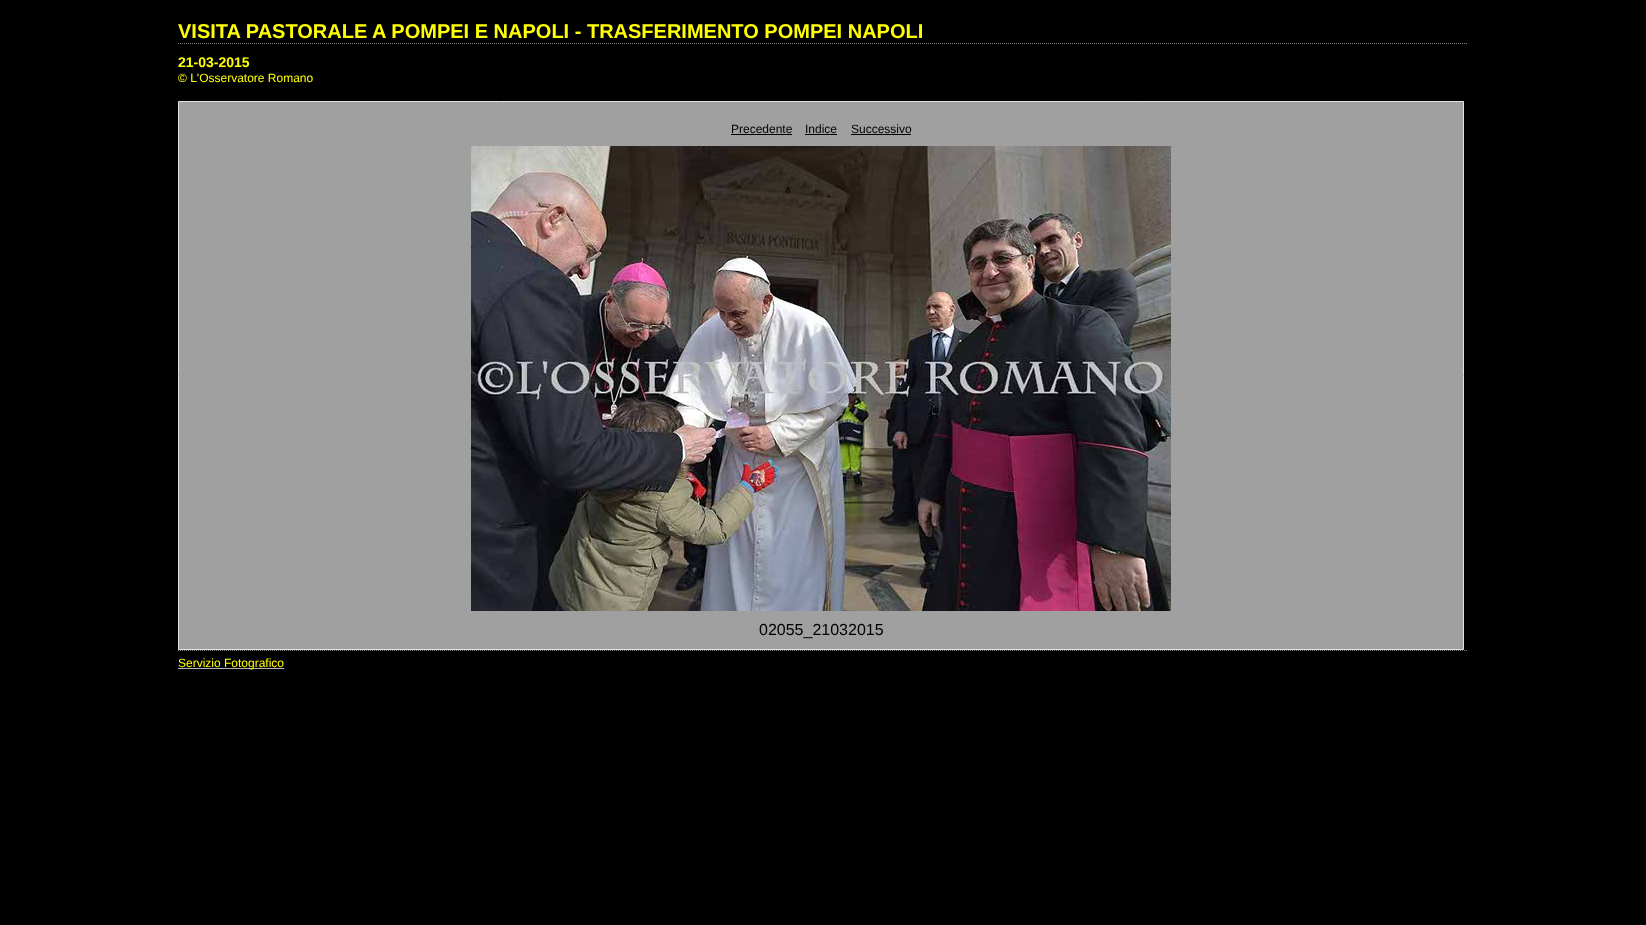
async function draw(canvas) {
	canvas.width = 1646;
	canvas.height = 925;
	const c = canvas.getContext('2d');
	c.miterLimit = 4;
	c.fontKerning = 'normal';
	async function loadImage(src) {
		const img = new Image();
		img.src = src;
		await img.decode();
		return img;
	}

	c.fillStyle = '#000';
	c.fillRect(0, 0, 1646, 925);
	c.beginPath();
	c.moveTo(178, 43.5);
	c.lineTo(1468, 43.5);
	c.strokeStyle = '#7f7f7f';
	c.setLineDash([1, 1]);
	c.stroke();
	c.font = 'bold 20px Liberation Sans';
	c.fillStyle = '#ff0';
	c.fillText('VISITA PASTORALE A POMPEI E NAPOLI - TRASFERIMENTO POMPEI NAPOLI', 178, 38);
	c.font = 'bold 14px Liberation Sans';
	c.fillText('21-03-2015', 178, 67);
	c.font = '12px Liberation Sans';
	c.fillText('© L\'Osservatore Romano', 178, 82);
	c.fillStyle = '#a0a0a0';
	c.beginPath();
	c.rect(178.5, 101.5, 1285, 548);
	c.fill();
	c.strokeStyle = '#e2e2e2';
	c.setLineDash([]);
	c.stroke();
	c.fillStyle = '#000';
	c.fillText('Precedente', 731, 133);
	c.fillRect(731, 134, 61, 1);
	c.fillText('Indice', 805, 133);
	c.fillRect(805, 134, 32, 1);
	c.fillText('Successivo', 851, 133);
	c.fillRect(851, 134, 60, 1);
	c.drawImage(await loadImage('img1.png'), 471, 146, 700, 465);
	c.font = '16px Liberation Sans';
	c.fillText('02055_21032015', 759, 635);
	c.beginPath();
	c.moveTo(178, 650.5);
	c.lineTo(1468, 650.5);
	c.strokeStyle = '#7f7f7f';
	c.setLineDash([1, 1]);
	c.stroke();
	c.fillStyle = '#b3b3b3';
	c.fillRect(178, 668, 106, 1);
	c.font = '12px Liberation Sans';
	c.fillStyle = '#ff0';
	c.fillText('Servizio Fotografico', 178, 667);
}

draw(document.querySelector('canvas'));
